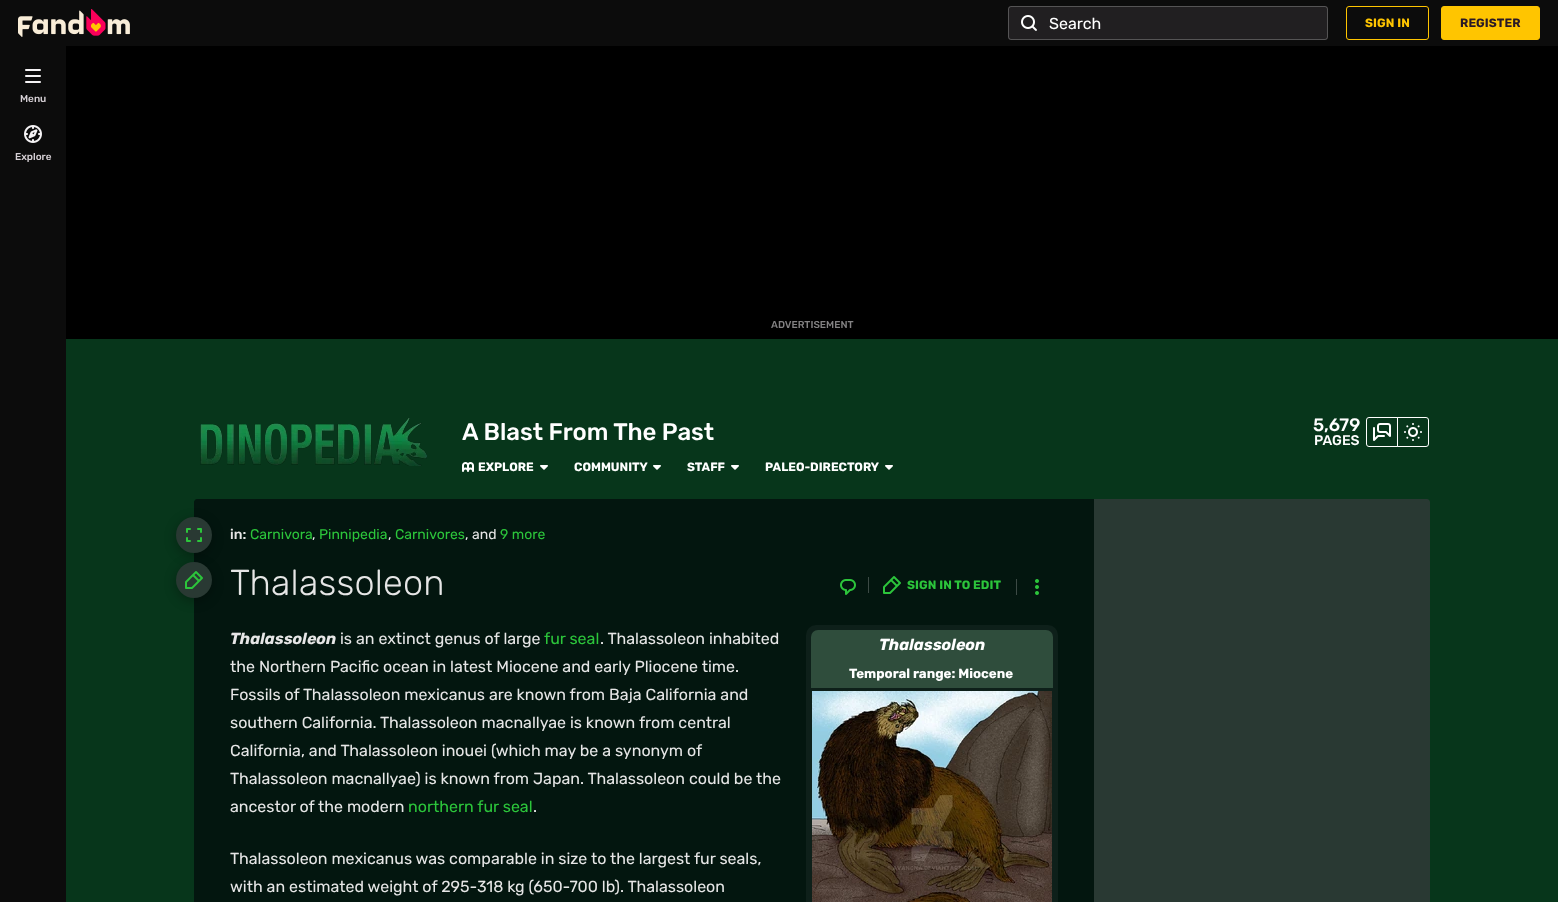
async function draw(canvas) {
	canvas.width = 1558;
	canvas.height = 902;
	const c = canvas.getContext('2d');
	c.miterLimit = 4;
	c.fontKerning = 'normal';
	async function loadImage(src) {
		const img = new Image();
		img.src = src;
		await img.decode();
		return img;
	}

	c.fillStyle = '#07361b';
	c.fillRect(0, 0, 1558, 902);
	c.fillStyle = '#0c0c0c';
	c.fillRect(0, 0, 1558, 46);
	c.drawImage(await loadImage('img1.png'), 18, 9, 112, 28);
	c.fillStyle = '#211f21';
	c.beginPath();
	c.roundRect(1008, 6, 320, 34, 3);
	c.fill();
	c.beginPath();
	c.roundRect(1008.5, 6.5, 319, 33, 2.5);
	c.strokeStyle = '#f5f3f540';
	c.stroke();
	c.drawImage(await loadImage('img2.png'), 1021, 15, 16, 16);
	c.font = '16px Rubik';
	c.fillStyle = '#fff';
	c.fillText('Search', 1049, 29);
	c.beginPath();
	c.roundRect(1346.5, 6.5, 82, 33, 2.5);
	c.strokeStyle = '#ffc500';
	c.stroke();
	c.letterSpacing = '0.1px';
	c.font = 'bold 12px Rubik';
	c.fillStyle = '#ffc500';
	c.fillText('SIGN IN', 1365, 27);
	c.beginPath();
	c.roundRect(1441.5, 6.5, 98, 33, 2.5);
	c.fill();
	c.stroke();
	c.fillStyle = '#291927';
	c.fillText('REGISTER', 1460, 27);
	c.fillStyle = '#0c0c0c';
	c.fillRect(0, 46, 66, 856);
	c.drawImage(await loadImage('img3.png'), 25, 69, 16, 14);
	c.letterSpacing = '0px';
	c.font = '500 10px Rubik';
	c.fillStyle = '#d6d0d5';
	c.fillText('Menu', 20, 102);
	c.drawImage(await loadImage('img4.png'), 24, 125, 18, 18);
	c.fillText('Explore', 15, 160);
	c.fillStyle = '#000';
	c.fillRect(66, 46, 1492, 293);
	c.fillStyle = '#838283';
	c.fillText('ADVERTISEMENT', 771, 328);
	c.drawImage(await loadImage('img5.png'), 200, 418, 227, 48);
	c.font = '500 24px Rubik';
	c.fillStyle = '#fff';
	c.fillText('A Blast From The Past', 462, 440);
	c.font = '500 18px Rubik';
	c.fillText('5,679', 1313, 431);
	c.font = '500 14px Rubik';
	c.fillText('PAGES', 1314, 445);
	c.beginPath();
	c.roundRect(1366.5, 417.5, 31, 29, [2.5, 0, 0, 2.5]);
	c.strokeStyle = '#fff';
	c.stroke();
	c.drawImage(await loadImage('img6.png'), 1373, 423, 18, 18);
	c.beginPath();
	c.roundRect(1397.5, 417.5, 31, 29, [0, 2.5, 2.5, 0]);
	c.stroke();
	c.drawImage(await loadImage('img7.png'), 1404, 423, 18, 18);
	c.drawImage(await loadImage('img8.png'), 462, 462, 12, 10);
	c.font = 'bold 12px Rubik';
	c.fillText('EXPLORE', 478, 471);
	c.drawImage(await loadImage('img9.png'), 540, 465, 8, 5);
	c.fillText('COMMUNITY', 574, 471);
	c.drawImage(await loadImage('img9.png'), 653, 465, 8, 5);
	c.fillText('STAFF', 687, 471);
	c.drawImage(await loadImage('img9.png'), 731, 465, 8, 5);
	c.fillText('PALEO-DIRECTORY', 765, 471);
	c.drawImage(await loadImage('img9.png'), 885, 465, 8, 5);
	c.fillStyle = '#03160f';
	c.beginPath();
	c.moveTo(197, 499);
	c.lineTo(1094, 499);
	c.lineTo(1094, 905);
	c.lineTo(197, 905);
	c.bezierCurveTo(195.5, 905, 194, 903.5, 194, 902);
	c.lineTo(194, 502);
	c.bezierCurveTo(194, 500.5, 195.5, 499, 197, 499);
	c.closePath();
	c.fill();
	c.fillStyle = '#0000004d';
	c.filter = 'blur(6px)';
	c.beginPath();
	c.roundRect(176, 520, 36, 36, 18);
	c.fill();
	c.filter = 'none';
	c.fillStyle = '#293933';
	c.beginPath();
	c.arc(194, 535, 18, 0, 2 * Math.PI);
	c.fill();
	c.drawImage(await loadImage('img10.png'), 186, 528, 16, 14);
	c.fillStyle = '#0000004d';
	c.filter = 'blur(6px)';
	c.beginPath();
	c.roundRect(176, 565, 36, 36, 18);
	c.fill();
	c.filter = 'none';
	c.fillStyle = '#293933';
	c.beginPath();
	c.arc(194, 580, 18, 0, 2 * Math.PI);
	c.fill();
	c.drawImage(await loadImage('img11.png'), 185, 571, 18, 18);
	c.font = '500 14px Rubik';
	c.fillStyle = '#e6e6e6';
	c.fillText('in:', 230, 539);
	c.font = '14px Rubik';
	c.fillStyle = '#2cc53b';
	c.fillText('Carnivora', 250, 539);
	c.fillStyle = '#e6e6e6';
	c.fillText(',', 312, 539);
	c.fillStyle = '#2cc53b';
	c.fillText('Pinnipedia', 319, 539);
	c.fillStyle = '#e6e6e6';
	c.fillText(',', 388, 539);
	c.fillStyle = '#2cc53b';
	c.fillText('Carnivores', 395, 539);
	c.fillStyle = '#e6e6e6';
	c.fillText(', and', 465, 539);
	c.fillStyle = '#2cc53b';
	c.fillText('9 more', 500, 539);
	c.letterSpacing = '0.25px';
	c.font = '300 36px Rubik';
	c.fillStyle = '#e6e6e6';
	c.fillText('Thalassoleon', 230, 595);
	c.drawImage(await loadImage('img12.png'), 840, 579, 16, 16);
	c.fillStyle = '#3c4a45';
	c.fillRect(868, 577, 1, 16);
	c.drawImage(await loadImage('img13.png'), 883, 576, 18, 18);
	c.letterSpacing = '0.1px';
	c.font = 'bold 12px Rubik';
	c.fillStyle = '#2cc53b';
	c.fillText('SIGN IN TO EDIT', 907, 589);
	c.fillStyle = '#3c4a45';
	c.fillRect(1016, 579, 1, 16);
	c.drawImage(await loadImage('img14.png'), 1035, 579, 4, 16);
	c.letterSpacing = '0px';
	c.font = 'italic bold 16px Rubik';
	c.fillStyle = '#e6e6e6';
	c.fillText('Thalassoleon', 230, 644);
	c.font = '16px Rubik';
	c.fillText('is an extinct genus of large', 340, 644);
	c.fillStyle = '#2cc53b';
	c.fillText('fur seal', 544, 644);
	c.fillStyle = '#e6e6e6';
	for (const [text, x, y] of [
		['. Thalassoleon inhabited', 600, 644],
		['the Northern Pacific ocean in latest Miocene and early Pliocene time.', 230, 672],
		['Fossils of Thalassoleon mexicanus are known from Baja California and', 230, 700],
		['southern California. Thalassoleon macnallyae is known from central', 230, 728],
		['California, and Thalassoleon inouei (which may be a synonym of', 230, 756],
		['Thalassoleon macnallyae) is known from Japan. Thalassoleon could be the', 230, 784],
		['ancestor of the modern', 230, 812],
	]) {
		c.fillText(text, x, y);
	}
	c.fillStyle = '#2cc53b';
	c.fillText('northern fur seal', 408, 812);
	c.fillStyle = '#e6e6e6';
	c.fillText('.', 533, 812);
	c.fillStyle = '#0e201a';
	c.beginPath();
	c.roundRect(806, 625, 252, 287, 10);
	c.fill();
	c.fillStyle = '#2f4d3c';
	c.beginPath();
	c.roundRect(811, 630, 242, 58, [7, 7, 0, 0]);
	c.fill();
	c.font = 'italic bold 16px Rubik';
	c.fillStyle = '#fff';
	c.fillText('Thalassoleon', 879, 650);
	c.font = 'bold 13.25px Rubik';
	c.fillText('Temporal range: Miocene', 849, 678);
	c.drawImage(await loadImage('img15.png'), 812, 691, 240, 211);
	c.font = '16px Rubik';
	c.fillStyle = '#e6e6e6';
	c.fillText('Thalassoleon mexicanus was comparable in size to the largest fur seals,', 230, 864);
	c.fillText('with an estimated weight of 295-318 kg (650-700 lb). Thalassoleon', 230, 892);
	c.fillStyle = '#293933';
	c.beginPath();
	c.moveTo(1094, 499);
	c.lineTo(1427, 499);
	c.bezierCurveTo(1428.5, 499, 1430, 500.5, 1430, 502);
	c.lineTo(1430, 902);
	c.bezierCurveTo(1430, 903.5, 1428.5, 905, 1427, 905);
	c.lineTo(1094, 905);
	c.closePath();
	c.fill();
}

draw(document.querySelector('canvas'));
